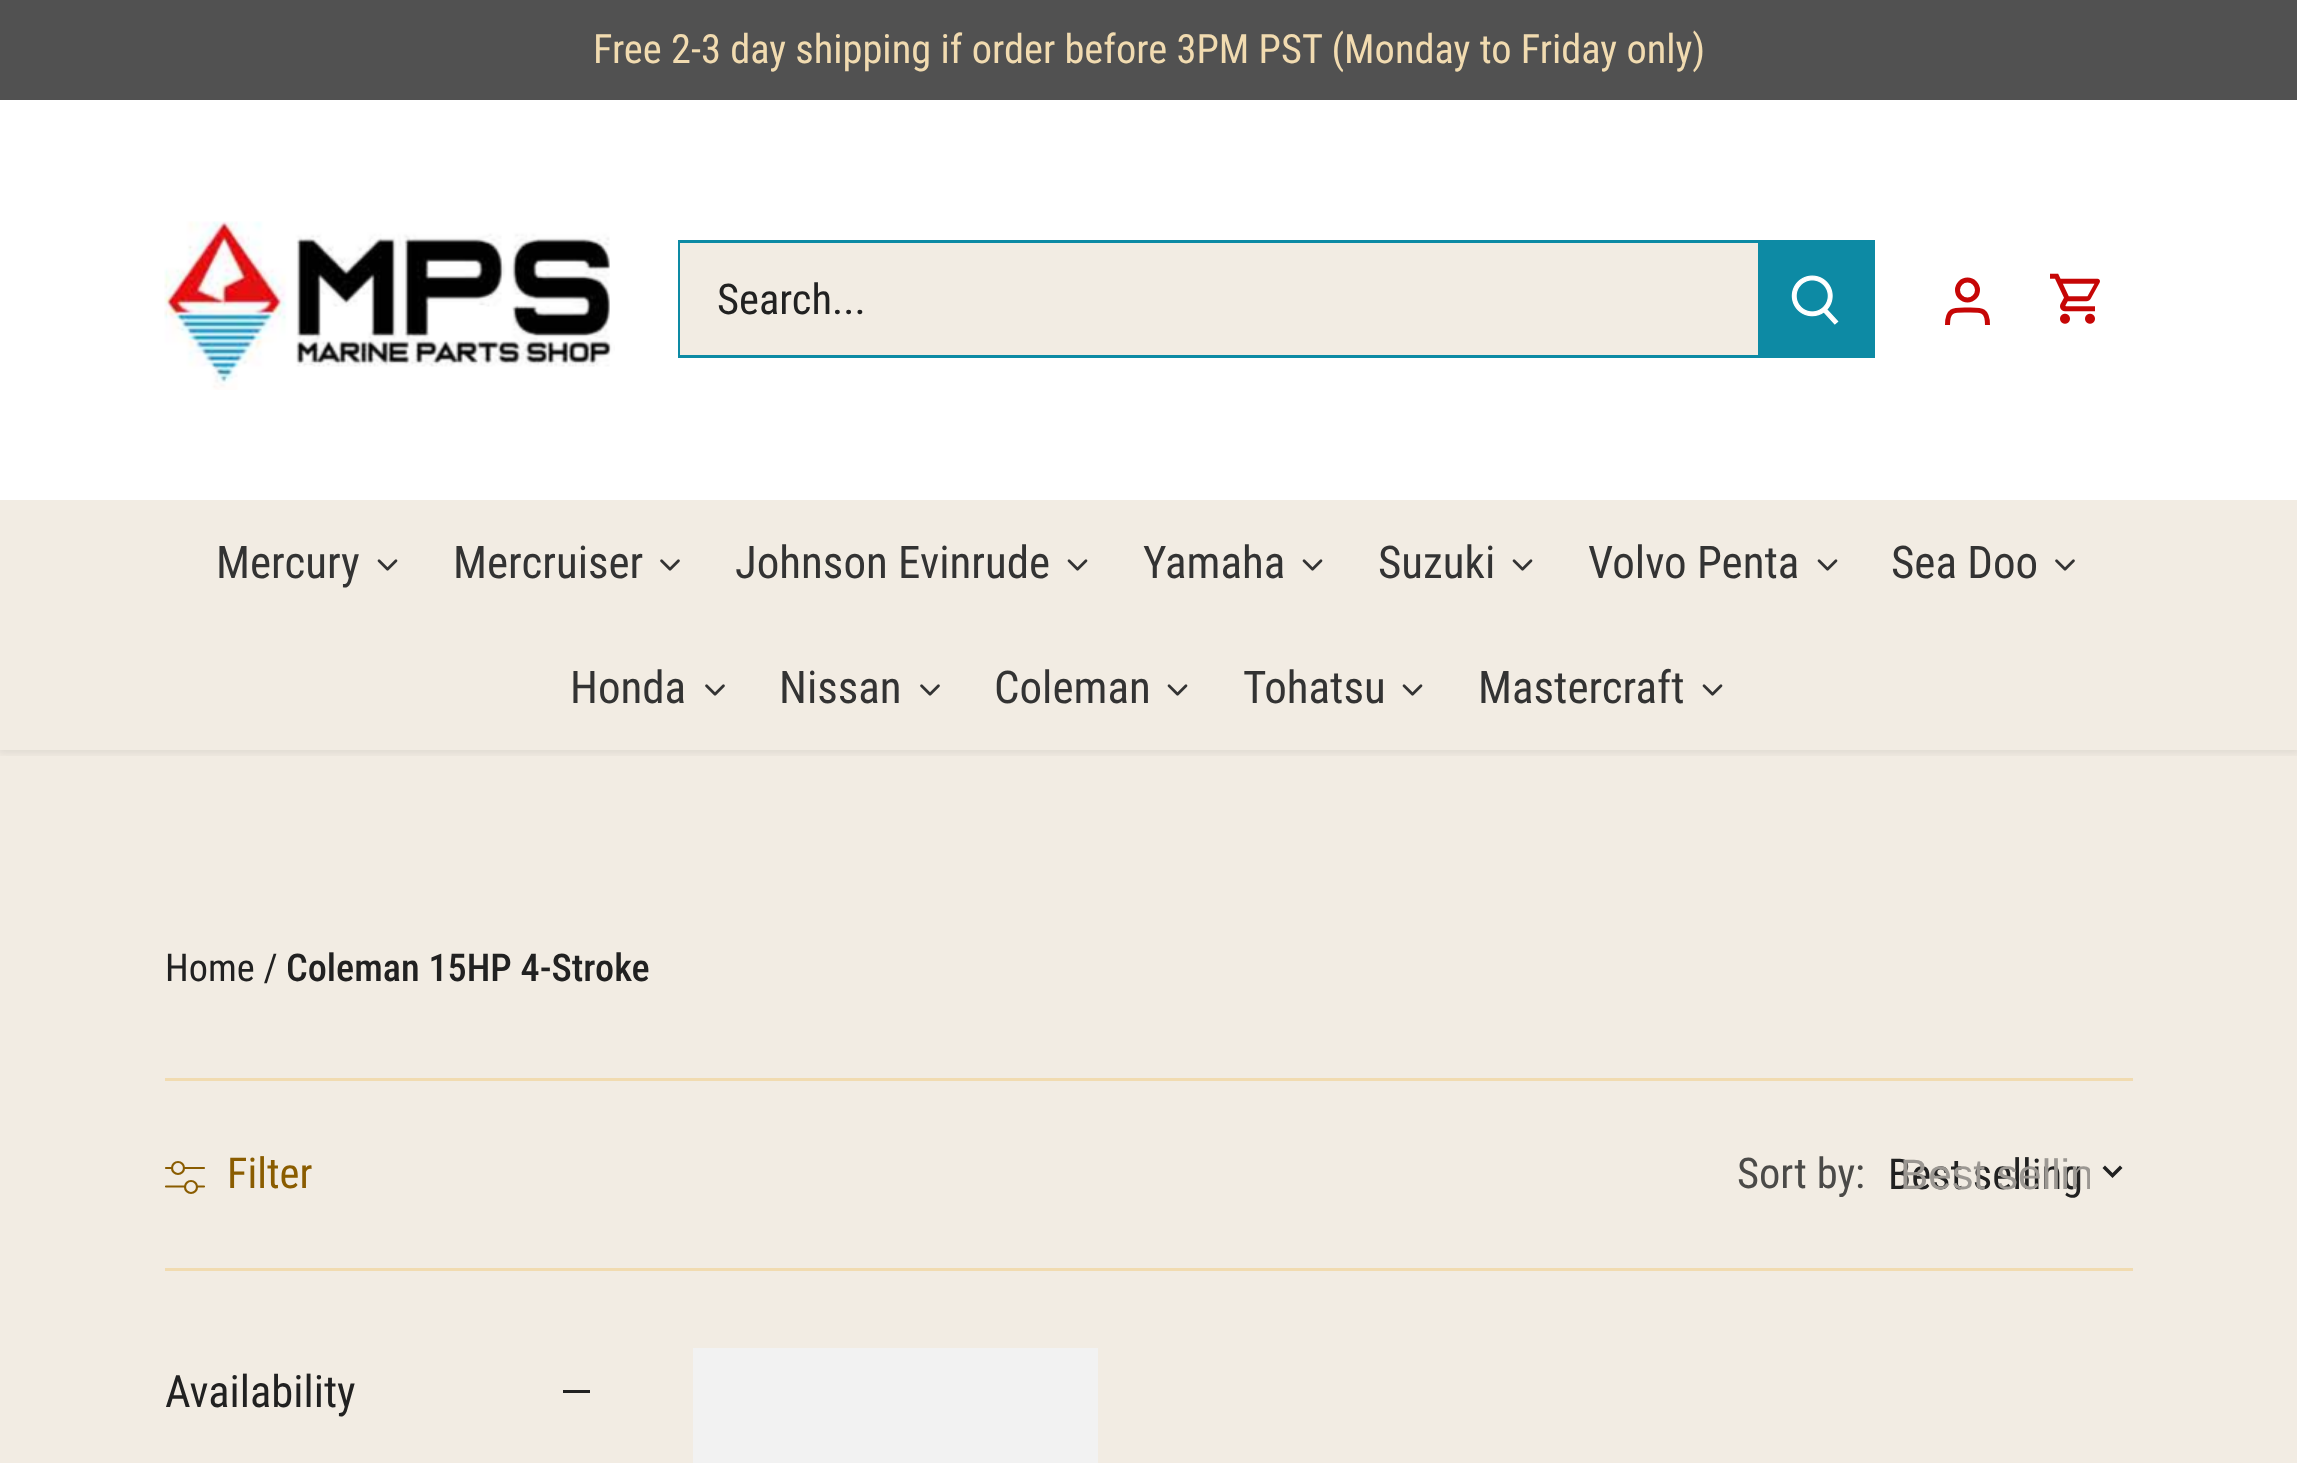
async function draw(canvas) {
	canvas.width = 2297;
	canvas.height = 1463;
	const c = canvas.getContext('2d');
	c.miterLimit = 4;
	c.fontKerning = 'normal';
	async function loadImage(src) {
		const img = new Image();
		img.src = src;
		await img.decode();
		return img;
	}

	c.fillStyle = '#f2ece3';
	c.fillRect(0, 0, 2297, 1463);
	c.save();
	c.beginPath();
	c.rect(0, 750, 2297, 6);
	c.clip();
	c.fillStyle = '#00000014';
	c.filter = 'blur(4px)';
	c.beginPath();
	c.rect(-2, 98, 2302, 655);
	c.fill();
	c.filter = 'none';
	c.restore();
	c.fillStyle = '#515151';
	c.fillRect(0, 0, 2297, 100);
	c.font = '40.4px Roboto Condensed';
	c.fillStyle = '#f1dbb0';
	c.fillText('Free 2-3 day shipping if order before 3PM PST (Monday to Friday only)', 593, 63);
	c.fillStyle = '#fff';
	c.fillRect(0, 100, 2297, 400);
	c.drawImage(await loadImage('img1.png'), 164, 221, 451, 169);
	c.strokeStyle = '#0d8aa4';
	c.lineWidth = 3;
	c.strokeRect(679.5, 241.5, 1194, 115);
	c.fillStyle = '#f2ece3';
	c.fillRect(680, 243, 1078, 112);
	c.font = '42.5px Roboto Condensed';
	c.fillStyle = '#212121';
	c.fillText('Search...', 717, 314);
	c.fillStyle = '#0d8aa4';
	c.fillRect(1758, 243, 114, 112);
	c.drawImage(await loadImage('img2.png'), 1791, 275, 48, 50);
	c.beginPath();
	c.arc(1967.5, 290, 10, 0, 2 * Math.PI);
	c.strokeStyle = '#c60606';
	c.lineWidth = 5;
	c.stroke();
	c.beginPath();
	c.moveTo(1987.5, 325);
	c.bezierCurveTo(1987.5, 309, 1981.5, 310, 1967.5, 310);
	c.bezierCurveTo(1953.5, 310, 1947.5, 309, 1947.5, 325);
	c.stroke();
	c.drawImage(await loadImage('img3.png'), 2050, 273, 50, 51);
	c.font = '45px Roboto Condensed';
	c.fillStyle = '#333';
	c.fillText('Mercury', 216, 578);
	c.drawImage(await loadImage('img4.png'), 377, 559, 21, 12);
	c.fillText('Mercruiser', 453, 578);
	c.drawImage(await loadImage('img5.png'), 660, 559, 20, 12);
	c.fillText('Johnson Evinrude', 735, 578);
	c.drawImage(await loadImage('img4.png'), 1067, 559, 21, 12);
	c.fillText('Yamaha', 1143, 578);
	c.drawImage(await loadImage('img4.png'), 1302, 559, 21, 12);
	c.fillText('Suzuki', 1378, 578);
	c.drawImage(await loadImage('img4.png'), 1512, 559, 21, 12);
	c.fillText('Volvo Penta', 1588, 578);
	c.drawImage(await loadImage('img4.png'), 1817, 559, 21, 12);
	c.fillText('Sea Doo', 1891, 578);
	c.drawImage(await loadImage('img5.png'), 2055, 559, 20, 12);
	c.fillText('Honda', 570, 703);
	c.drawImage(await loadImage('img5.png'), 705, 684, 20, 12);
	c.fillText('Nissan', 779, 703);
	c.drawImage(await loadImage('img5.png'), 920, 684, 20, 12);
	c.fillText('Coleman', 994, 703);
	c.drawImage(await loadImage('img4.png'), 1167, 684, 21, 12);
	c.fillText('Tohatsu', 1243, 703);
	c.drawImage(await loadImage('img4.png'), 1402, 684, 21, 12);
	c.fillText('Mastercraft', 1478, 703);
	c.drawImage(await loadImage('img4.png'), 1702, 684, 21, 12);
	c.font = '38.25px Roboto Condensed';
	c.fillStyle = '#212121';
	c.fillText('Home /', 165, 981);
	c.font = '500 38.25px Roboto Condensed';
	c.fillText('Coleman 15HP 4-Stroke', 286, 981);
	c.fillStyle = '#f1dbb0';
	c.fillRect(165, 1078, 1968, 3);
	c.fillRect(165, 1268, 1968, 3);
	c.font = '42.5px Roboto Condensed';
	c.fillStyle = '#8a5c00';
	c.fillText('Filter', 227, 1188);
	c.beginPath();
	c.moveTo(166, 1168);
	c.lineTo(171.5, 1168);
	c.moveTo(184.5, 1168);
	c.lineTo(204, 1168);
	c.moveTo(166, 1186.5);
	c.lineTo(184.5, 1186.5);
	c.moveTo(197.5, 1186.5);
	c.lineTo(204, 1186.5);
	c.strokeStyle = '#8a5c00';
	c.lineWidth = 2.2;
	c.lineCap = 'round';
	c.lineJoin = 'round';
	c.stroke();
	c.beginPath();
	c.arc(178, 1168, 6, 0, 2 * Math.PI);
	c.stroke();
	c.beginPath();
	c.arc(191, 1187, 6, 0, 2 * Math.PI);
	c.stroke();
	c.fillStyle = '#4b4a48';
	c.fillText('Sort by:', 1737, 1188);
	c.fillStyle = '#212121';
	c.fillText('Best selling', 1888, 1189);
	c.save();
	c.beginPath();
	c.rect(1900, 1150, 190, 53);
	c.clip();
	c.font = '42.5px Liberation Sans';
	c.fillStyle = '#9b9792';
	c.fillText('Best sellin', 1900, 1189);
	c.restore();
	c.beginPath();
	c.moveTo(2105, 1165.5);
	c.lineTo(2112.5, 1173);
	c.lineTo(2120, 1165.5);
	c.lineTo(2122.5, 1168);
	c.lineTo(2112.5, 1178);
	c.lineTo(2102.5, 1168);
	c.closePath();
	c.fill();
	c.font = '44.5px Roboto Condensed';
	c.fillText('Availability', 165, 1407);
	c.fillRect(563, 1390, 27, 3);
	c.fillStyle = '#f2f2f2';
	c.fillRect(693, 1348, 405, 115);
}

draw(document.querySelector('canvas'));
